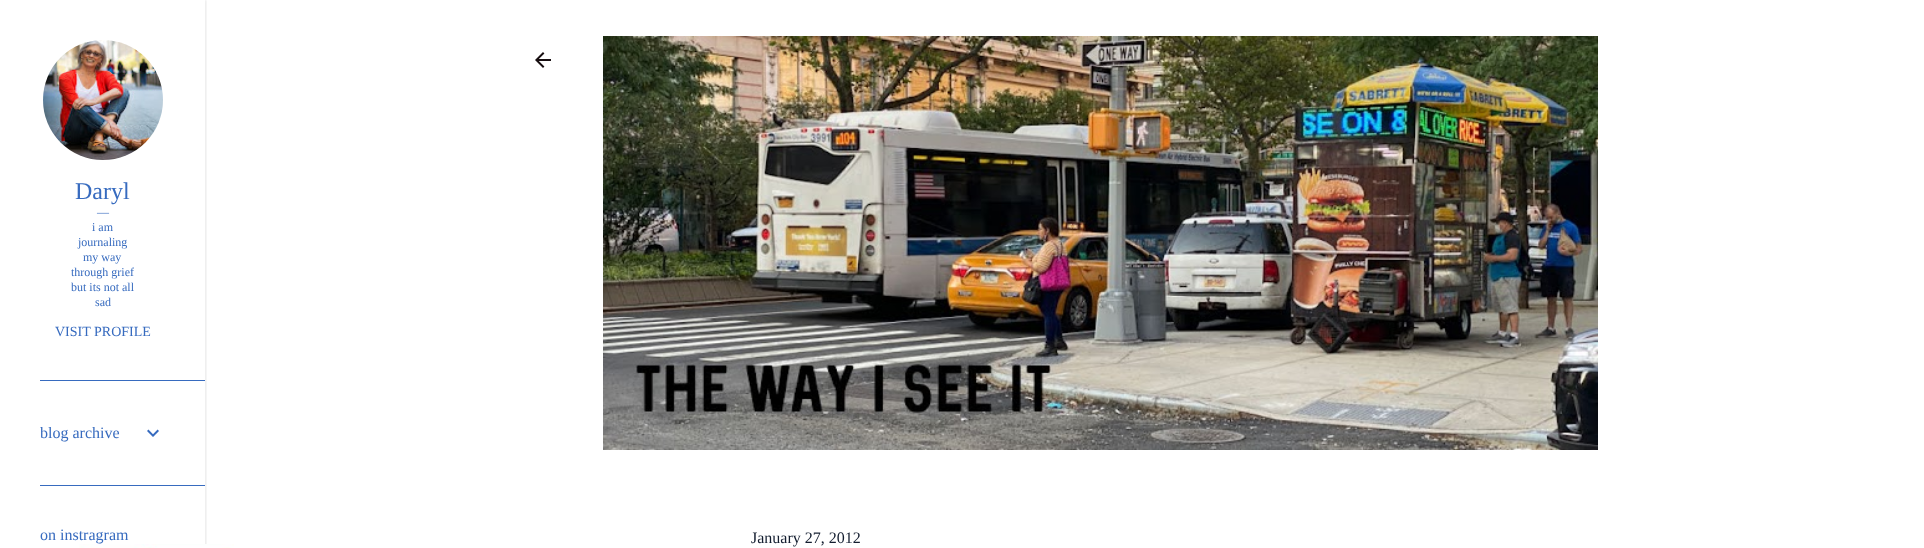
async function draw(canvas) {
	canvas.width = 1924;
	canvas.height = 548;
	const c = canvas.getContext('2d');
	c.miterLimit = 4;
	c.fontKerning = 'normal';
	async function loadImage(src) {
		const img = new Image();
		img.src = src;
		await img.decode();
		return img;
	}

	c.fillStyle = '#fff';
	c.fillRect(0, 0, 1924, 548);
	c.save();
	c.beginPath();
	c.rect(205, 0, 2, 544);
	c.clip();
	c.fillStyle = '#0000001a';
	c.filter = 'blur(1.5px)';
	c.beginPath();
	c.rect(1, 0, 205, 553);
	c.fill();
	c.filter = 'none';
	c.restore();
	c.drawImage(await loadImage('img1.png'), 43, 40, 120, 120);
	c.font = '24px Liberation Serif';
	c.fillStyle = '#376bbf';
	c.fillText('Daryl', 75, 199);
	c.font = '12px Liberation Serif';
	for (const [text, x, y] of [
		['—', 97, 216],
		['i am', 92, 231],
		['journaling', 78, 246],
		['my way', 83, 261],
		['through grief', 71, 276],
		['but its not all', 71, 291],
		['sad', 95, 306],
	]) {
		c.fillText(text, x, y);
	}
	c.font = '14px Liberation Serif';
	c.fillText('VISIT PROFILE', 55, 336);
	c.fillRect(40, 380, 165, 1);
	c.font = '16px Liberation Serif';
	c.fillText('blog archive', 40, 438);
	c.drawImage(await loadImage('img2.png'), 147, 429, 12, 8);
	c.fillRect(40, 485, 165, 1);
	c.fillText('on instragram', 40, 540);
	c.drawImage(await loadImage('img3.png'), 79, 544, 155, 4);
	c.drawImage(await loadImage('img4.png'), 535, 52, 16, 16);
	c.drawImage(await loadImage('img5.png'), 603, 36, 995, 414);
	c.fillStyle = '#131d2f';
	c.fillText('January 27, 2012', 751, 543);
}

draw(document.querySelector('canvas'));
